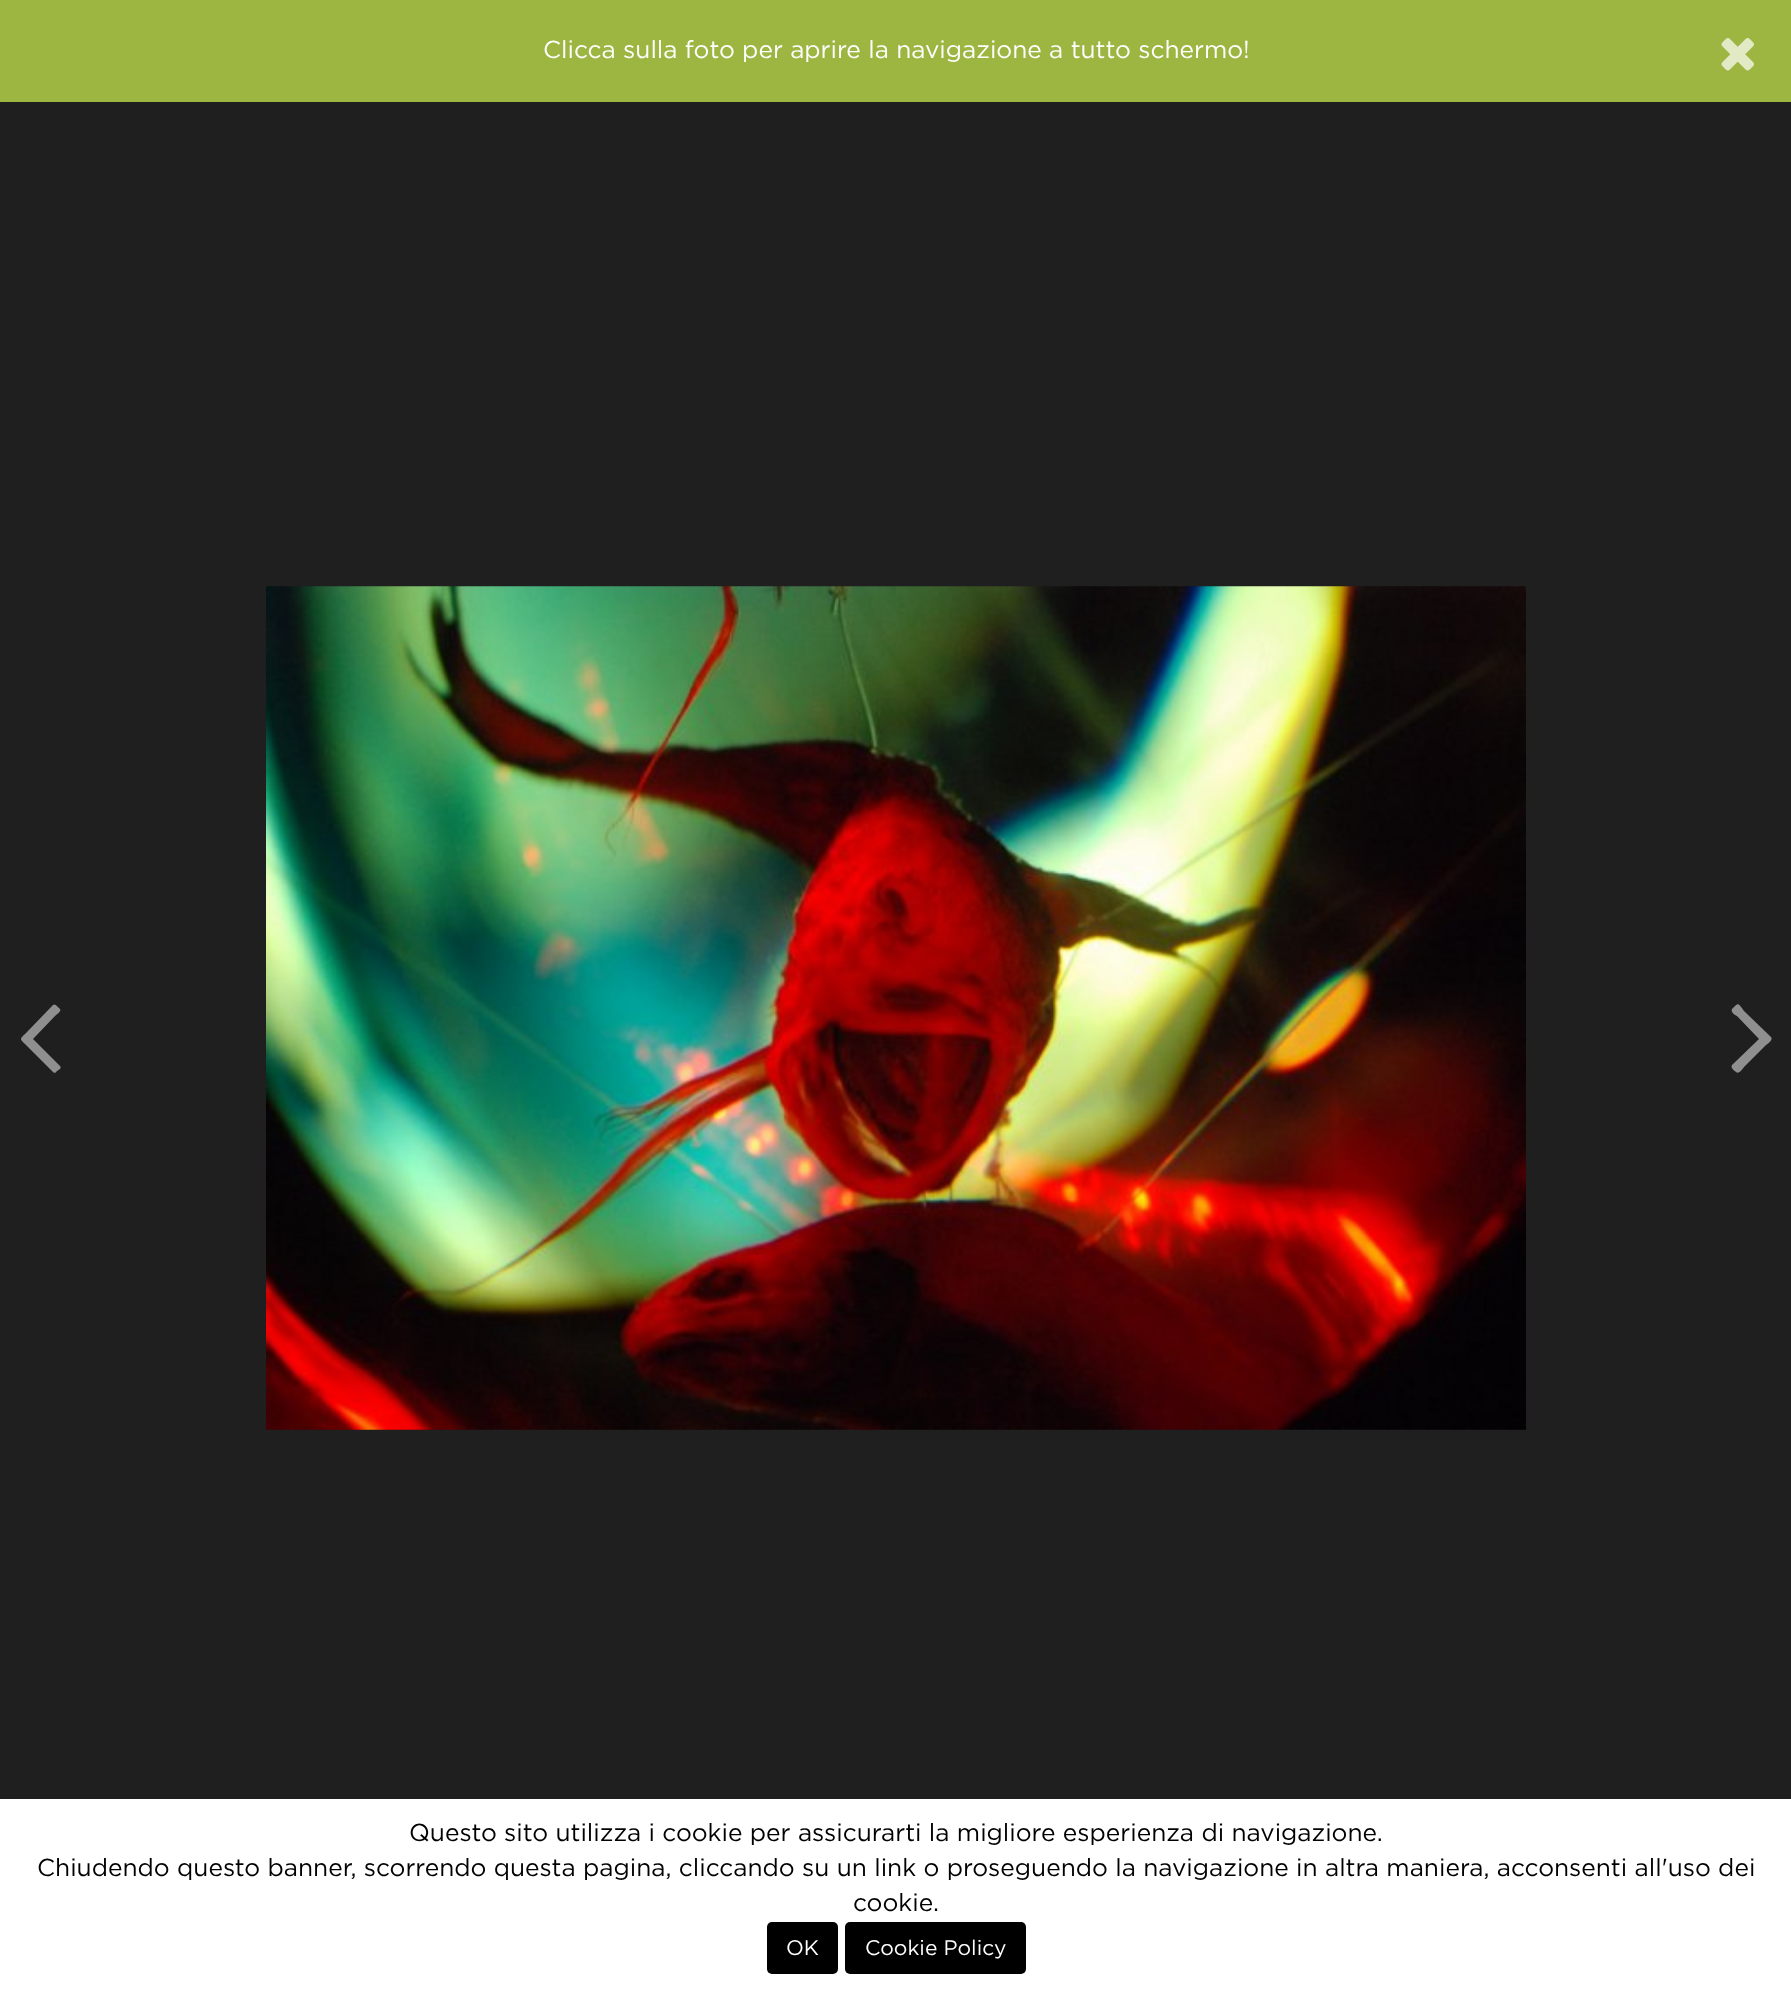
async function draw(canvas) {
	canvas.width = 1791;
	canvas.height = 1991;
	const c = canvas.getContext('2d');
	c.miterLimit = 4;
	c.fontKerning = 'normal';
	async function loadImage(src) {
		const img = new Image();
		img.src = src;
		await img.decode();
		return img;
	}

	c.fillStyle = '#1f1f1f';
	c.fillRect(0, 0, 1791, 1991);
	c.fillStyle = '#9cb641';
	c.fillRect(0, 0, 1791, 102);
	c.font = '24.5px Gotham';
	c.fillStyle = '#fff';
	c.fillText('Clicca sulla foto per aprire la navigazione a tutto schermo!', 543, 58);
	c.drawImage(await loadImage('img1.png'), 1721, 38, 33, 33);
	c.fillStyle = '#8f8f8f';
	c.beginPath();
	c.moveTo(60, 1009);
	c.bezierCurveTo(62, 1011, 56, 1015, 55, 1016);
	c.lineTo(33, 1039);
	c.lineTo(60, 1066);
	c.bezierCurveTo(62, 1068, 59, 1070, 57, 1071);
	c.bezierCurveTo(56, 1072, 55, 1074, 53, 1072);
	c.lineTo(27, 1046);
	c.bezierCurveTo(19, 1038, 19, 1040, 27, 1032);
	c.lineTo(53, 1005);
	c.bezierCurveTo(55, 1003, 58, 1007, 60, 1009);
	c.closePath();
	c.fill();
	c.drawImage(await loadImage('img2.png'), 266, 586, 1260, 844);
	c.beginPath();
	c.moveTo(1771, 1037);
	c.bezierCurveTo(1774, 1040, 1766, 1045, 1765, 1046);
	c.lineTo(1744, 1067);
	c.bezierCurveTo(1744, 1067, 1739, 1075, 1736, 1072);
	c.bezierCurveTo(1735, 1071, 1730, 1068, 1732, 1065);
	c.lineTo(1759, 1039);
	c.lineTo(1737, 1016);
	c.bezierCurveTo(1736, 1016, 1730, 1012, 1732, 1009);
	c.lineTo(1735, 1006);
	c.bezierCurveTo(1739, 1002, 1740, 1006, 1744, 1011);
	c.closePath();
	c.fill();
	c.fillStyle = '#fff';
	c.fillRect(0, 1799, 1791, 192);
	c.fillStyle = '#000';
	for (const [text, x, y] of [
		['Questo sito utilizza i cookie per assicurarti la migliore esperienza di navigazione.', 409, 1841],
		['Chiudendo questo banner, scorrendo questa pagina, cliccando su un link o proseguendo la navigazione in altra maniera, acconsenti all\'uso dei', 37, 1876],
		['cookie.', 853, 1911],
	]) {
		c.fillText(text, x, y);
	}
	c.beginPath();
	c.roundRect(767, 1922, 71, 52, 5);
	c.fill();
	c.font = '21px Gotham';
	c.fillStyle = '#fff';
	c.fillText('OK', 786, 1955);
	c.fillStyle = '#000';
	c.beginPath();
	c.roundRect(845, 1922, 181, 52, 5);
	c.fill();
	c.fillStyle = '#fff';
	c.fillText('Cookie Policy', 865, 1955);
}

draw(document.querySelector('canvas'));
